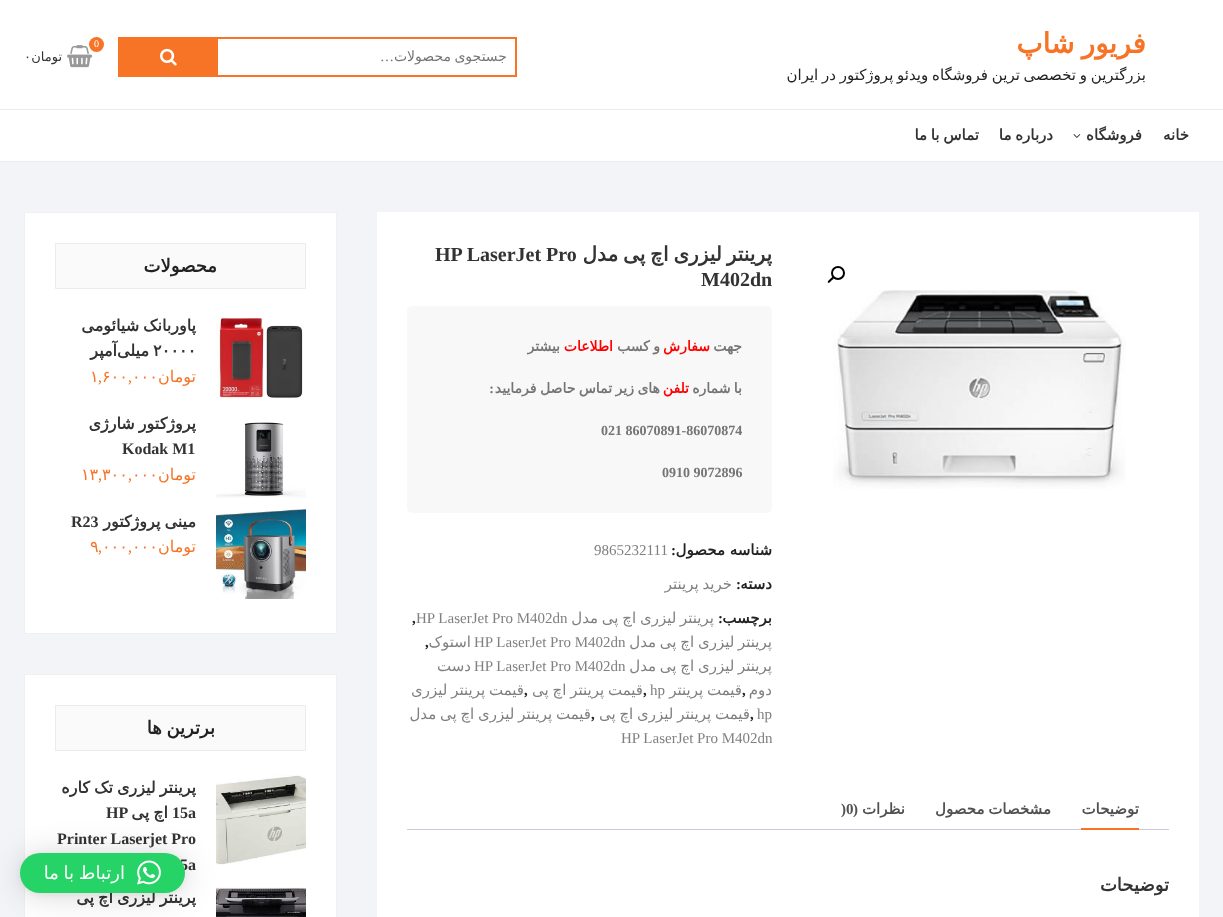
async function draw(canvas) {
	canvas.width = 1223;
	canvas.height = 917;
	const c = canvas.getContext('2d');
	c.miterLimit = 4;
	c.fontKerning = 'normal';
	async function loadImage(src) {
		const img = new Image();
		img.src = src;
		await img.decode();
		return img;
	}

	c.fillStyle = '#f3f4f8';
	c.fillRect(0, 0, 1223, 917);
	c.fillStyle = '#fff';
	c.fillRect(0, 0, 1223, 161);
	c.wordSpacing = '-2px';
	c.direction = 'rtl';
	c.font = 'bold 28px DejaVu Sans';
	c.fillStyle = '#f77426';
	c.fillText('فریور شاپ', 1146, 53);
	c.wordSpacing = '-1px';
	c.font = '15px DejaVu Sans';
	c.fillStyle = '#222';
	c.fillText('بزرگترین و تخصصی ترین فروشگاه ویدئو پروژکتور در ایران', 1146, 80);
	for (const [x, y, w, h, color] of [
		[217, 37, 300, 2, '#f77426'],
		[515, 37, 2, 40, '#f77426'],
		[217, 75, 300, 2, '#f77426'],
	]) {
		c.fillStyle = color;
		c.fillRect(x, y, w, h);
	}
	c.font = '14px DejaVu Sans';
	c.fillStyle = '#757575';
	c.fillText('جستجوی محصولات', 507, 61);
	c.wordSpacing = '0px';
	c.font = '14px Liberation Serif';
	c.fillText('…', 394, 61);
	c.fillStyle = '#f77426';
	c.fillRect(118, 37, 100, 40);
	c.drawImage(await loadImage('img1.png'), 160, 48, 17, 18);
	c.drawImage(await loadImage('img2.png'), 67, 45, 26, 23);
	c.beginPath();
	c.arc(96.5, 44.5, 7.5, 0, 2 * Math.PI);
	c.fill();
	c.direction = 'ltr';
	c.font = '10px Liberation Serif';
	c.fillStyle = '#fff';
	c.fillText('0', 94, 47);
	c.direction = 'rtl';
	c.font = '13px DejaVu Sans';
	c.fillStyle = '#333';
	c.fillText('تومان', 62, 61);
	c.direction = 'ltr';
	c.fillText('۰', 24, 61);
	c.fillStyle = '#ebebeb';
	c.fillRect(0, 109, 1223, 1);
	c.fillRect(0, 161, 1223, 1);
	c.direction = 'rtl';
	c.font = 'bold 15px DejaVu Sans';
	c.fillStyle = '#333';
	c.fillText('خانه', 1189, 140);
	c.fillText('فروشگاه', 1142, 140);
	c.drawImage(await loadImage('img3.png'), 1073, 134, 8, 4);
	c.wordSpacing = '-1px';
	c.fillText('درباره ما', 1053, 140);
	c.fillText('تماس با ما', 979, 140);
	c.fillStyle = '#fff';
	c.fillRect(377, 212, 822, 705);
	c.beginPath();
	c.arc(838, 273, 6, 0, 2 * Math.PI);
	c.strokeStyle = '#000';
	c.lineWidth = 2;
	c.stroke();
	c.fillStyle = '#000';
	c.beginPath();
	c.moveTo(833.5, 277);
	c.bezierCurveTo(835, 278.5, 832, 280, 831.5, 280.5);
	c.bezierCurveTo(831, 281, 829, 284, 828, 282.5);
	c.bezierCurveTo(827, 281.5, 829.5, 280, 830, 279);
	c.bezierCurveTo(831, 278.5, 832.5, 276, 833.5, 277);
	c.closePath();
	c.fill();
	c.drawImage(await loadImage('img4.png'), 833, 290, 293, 199);
	c.wordSpacing = '-1.5px';
	c.font = 'bold 20px DejaVu Sans';
	c.fillStyle = '#333';
	c.fillText('پرینتر لیزری اچ پی مدل', 772, 261);
	c.wordSpacing = '0px';
	c.direction = 'ltr';
	c.font = 'bold 20px Liberation Serif';
	c.fillText('HP LaserJet Pro', 435, 261);
	c.fillText('M402dn', 701, 286);
	c.fillStyle = '#f8f8f8';
	c.beginPath();
	c.roundRect(407, 306, 365, 207, 5);
	c.fill();
	c.direction = 'rtl';
	c.font = 'bold 14px DejaVu Sans';
	c.fillStyle = '#757575';
	c.fillText('جهت', 742, 351);
	c.fillStyle = '#f00';
	c.fillText('سفارش', 710, 351);
	c.wordSpacing = '-1px';
	c.fillStyle = '#757575';
	c.fillText('و کسب', 660, 351);
	c.wordSpacing = '0px';
	c.fillStyle = '#f00';
	c.fillText('اطلاعات', 613, 351);
	c.fillStyle = '#757575';
	c.fillText('بیشتر', 560, 351);
	c.wordSpacing = '-1px';
	c.fillText('با شماره', 742, 393);
	c.wordSpacing = '0px';
	c.fillStyle = '#f00';
	c.fillText('تلفن', 689, 393);
	c.wordSpacing = '-1px';
	c.fillStyle = '#757575';
	c.fillText('های زیر تماس حاصل فرمایید', 660, 393);
	c.wordSpacing = '0px';
	c.font = 'bold 14px Liberation Serif';
	c.fillText(':', 494, 393);
	c.direction = 'ltr';
	c.fillText('021 86070891-86070874', 601, 435);
	c.fillText('0910 9072896', 662, 477);
	c.direction = 'rtl';
	c.font = 'bold 15px DejaVu Sans';
	c.fillStyle = '#222';
	c.fillText('شناسه محصول', 772, 555);
	c.font = 'bold 15px Liberation Serif';
	c.fillText(':', 676, 555);
	c.direction = 'ltr';
	c.font = '15px Liberation Serif';
	c.fillStyle = '#808080';
	c.fillText('9865232111', 594, 555);
	c.direction = 'rtl';
	c.font = 'bold 15px DejaVu Sans';
	c.fillStyle = '#222';
	c.fillText('دسته', 772, 589);
	c.font = 'bold 15px Liberation Serif';
	c.fillText(':', 741, 589);
	c.wordSpacing = '-1px';
	c.font = '15px DejaVu Sans';
	c.fillStyle = '#808080';
	c.fillText('خرید پرینتر', 732, 589);
	c.wordSpacing = '0px';
	c.font = 'bold 15px DejaVu Sans';
	c.fillStyle = '#222';
	c.fillText('برچسب', 772, 623);
	c.font = 'bold 15px Liberation Serif';
	c.fillText(':', 723, 623);
	c.wordSpacing = '-1px';
	c.font = '15px DejaVu Sans';
	c.fillStyle = '#808080';
	c.fillText('پرینتر لیزری اچ پی مدل', 714, 623);
	c.wordSpacing = '0px';
	c.direction = 'ltr';
	c.font = '15px Liberation Serif';
	c.fillText('HP LaserJet Pro M402dn', 416, 623);
	c.font = 'bold 15px Liberation Serif';
	c.fillStyle = '#222';
	c.fillText(',', 412, 623);
	c.wordSpacing = '-1px';
	c.direction = 'rtl';
	c.font = '15px DejaVu Sans';
	c.fillStyle = '#808080';
	c.fillText('پرینتر لیزری اچ پی مدل', 772, 647);
	c.wordSpacing = '0px';
	c.direction = 'ltr';
	c.font = '15px Liberation Serif';
	c.fillText('HP LaserJet Pro M402dn', 474, 647);
	c.direction = 'rtl';
	c.font = '15px DejaVu Sans';
	c.fillText('استوک', 471, 647);
	c.direction = 'ltr';
	c.font = 'bold 15px Liberation Serif';
	c.fillStyle = '#222';
	c.fillText(',', 425, 647);
	c.wordSpacing = '-1px';
	c.direction = 'rtl';
	c.font = '15px DejaVu Sans';
	c.fillStyle = '#808080';
	c.fillText('پرینتر لیزری اچ پی مدل', 772, 671);
	c.wordSpacing = '0px';
	c.direction = 'ltr';
	c.font = '15px Liberation Serif';
	c.fillText('HP LaserJet Pro M402dn', 474, 671);
	c.direction = 'rtl';
	c.font = '15px DejaVu Sans';
	c.fillText('دست', 471, 671);
	c.fillText('دوم', 772, 695);
	c.direction = 'ltr';
	c.font = 'bold 15px Liberation Serif';
	c.fillStyle = '#222';
	c.fillText(',', 742, 695);
	c.wordSpacing = '-1px';
	c.direction = 'rtl';
	c.font = '15px DejaVu Sans';
	c.fillStyle = '#808080';
	c.fillText('قیمت پرینتر', 742, 695);
	c.wordSpacing = '0px';
	c.direction = 'ltr';
	c.font = '15px Liberation Serif';
	c.fillText('hp', 650, 695);
	c.font = 'bold 15px Liberation Serif';
	c.fillStyle = '#222';
	c.fillText(',', 643, 695);
	c.wordSpacing = '-1px';
	c.direction = 'rtl';
	c.font = '15px DejaVu Sans';
	c.fillStyle = '#808080';
	c.fillText('قیمت پرینتر اچ پی', 643, 695);
	c.wordSpacing = '0px';
	c.direction = 'ltr';
	c.font = 'bold 15px Liberation Serif';
	c.fillStyle = '#222';
	c.fillText(',', 524, 695);
	c.wordSpacing = '-1px';
	c.direction = 'rtl';
	c.font = '15px DejaVu Sans';
	c.fillStyle = '#808080';
	c.fillText('قیمت پرینتر لیزری', 524, 695);
	c.wordSpacing = '0px';
	c.direction = 'ltr';
	c.font = '15px Liberation Serif';
	c.fillText('hp', 757, 719);
	c.font = 'bold 15px Liberation Serif';
	c.fillStyle = '#222';
	c.fillText(',', 750, 719);
	c.wordSpacing = '-1px';
	c.direction = 'rtl';
	c.font = '15px DejaVu Sans';
	c.fillStyle = '#808080';
	c.fillText('قیمت پرینتر لیزری اچ پی', 750, 719);
	c.wordSpacing = '0px';
	c.direction = 'ltr';
	c.font = 'bold 15px Liberation Serif';
	c.fillStyle = '#222';
	c.fillText(',', 591, 719);
	c.wordSpacing = '-1px';
	c.direction = 'rtl';
	c.font = '15px DejaVu Sans';
	c.fillStyle = '#808080';
	c.fillText('قیمت پرینتر لیزری اچ پی مدل', 591, 719);
	c.wordSpacing = '0px';
	c.direction = 'ltr';
	c.font = '15px Liberation Serif';
	c.fillText('HP LaserJet Pro M402dn', 621, 743);
	c.fillStyle = '#cfc8d8';
	c.fillRect(407, 829, 762, 1);
	c.fillStyle = '#f77426';
	c.fillRect(1081, 828, 58, 2);
	c.direction = 'rtl';
	c.font = 'bold 15px DejaVu Sans';
	c.fillStyle = '#515151';
	c.fillText('توضیحات', 1139, 814);
	c.wordSpacing = '-1px';
	c.fillText('مشخصات محصول', 1051, 814);
	c.wordSpacing = '0px';
	c.fillText('نظرات', 905, 814);
	c.font = 'bold 15px Liberation Serif';
	c.fillText('(', 858, 814);
	c.direction = 'ltr';
	c.fillText(')0', 841, 814);
	c.direction = 'rtl';
	c.font = 'bold 18px DejaVu Sans';
	c.fillStyle = '#333';
	c.fillText('توضیحات', 1169, 891);
	c.fillStyle = '#fff';
	c.beginPath();
	c.rect(24.5, 212.5, 312, 421);
	c.fill();
	c.strokeStyle = '#f0f0f0';
	c.lineWidth = 1;
	c.stroke();
	c.fillStyle = '#fafafa';
	c.beginPath();
	c.rect(55.5, 243.5, 250, 45);
	c.fill();
	c.strokeStyle = '#ebebeb';
	c.stroke();
	c.fillStyle = '#222';
	c.fillText('محصولات', 217, 272);
	c.drawImage(await loadImage('img5.png'), 216, 318, 87, 81);
	c.wordSpacing = '-1px';
	c.font = 'bold 16px DejaVu Sans';
	c.fillStyle = '#333';
	c.fillText('پاوربانک شیائومی', 196, 331);
	c.wordSpacing = '0px';
	c.direction = 'ltr';
	c.fillText('۲۰۰۰۰', 153, 356);
	c.direction = 'rtl';
	c.fillText('آمپر', 117, 356);
	c.fillText('میلی', 149, 356);
	c.font = '16px DejaVu Sans';
	c.fillStyle = '#f77426';
	c.fillText('تومان', 196, 382);
	c.direction = 'ltr';
	for (const [text, x, y] of [
		['۰۰۰', 132, 382],
		['۶۰۰', 102, 382],
		['۱', 90, 382],
	]) {
		c.fillText(text, x, y);
	}
	c.font = '16px Liberation Serif';
	c.fillText(',', 128, 382);
	c.fillText(',', 98, 382);
	c.drawImage(await loadImage('img6.png'), 216, 422, 90, 76);
	c.wordSpacing = '-1px';
	c.direction = 'rtl';
	c.font = 'bold 16px DejaVu Sans';
	c.fillStyle = '#333';
	c.fillText('پروژکتور شارژی', 196, 429);
	c.wordSpacing = '0px';
	c.direction = 'ltr';
	c.font = 'bold 16px Liberation Serif';
	c.fillText('Kodak M1', 122, 454);
	c.direction = 'rtl';
	c.font = '16px DejaVu Sans';
	c.fillStyle = '#f77426';
	c.fillText('تومان', 196, 480);
	c.direction = 'ltr';
	for (const [text, x, y] of [
		['۰۰۰', 132, 480],
		['۳۰۰', 102, 480],
		['۱۳', 81, 480],
	]) {
		c.fillText(text, x, y);
	}
	c.font = '16px Liberation Serif';
	c.fillText(',', 128, 480);
	c.fillText(',', 98, 480);
	c.drawImage(await loadImage('img7.png'), 216, 509, 90, 90);
	c.wordSpacing = '-1px';
	c.direction = 'rtl';
	c.font = 'bold 16px DejaVu Sans';
	c.fillStyle = '#333';
	c.fillText('مینی پروژکتور', 196, 527);
	c.wordSpacing = '0px';
	c.direction = 'ltr';
	c.font = 'bold 16px Liberation Serif';
	c.fillText('R23', 71, 527);
	c.direction = 'rtl';
	c.font = '16px DejaVu Sans';
	c.fillStyle = '#f77426';
	c.fillText('تومان', 196, 552);
	c.direction = 'ltr';
	for (const [text, x, y] of [
		['۰۰۰', 132, 552],
		['۰۰۰', 102, 552],
		['۹', 90, 552],
	]) {
		c.fillText(text, x, y);
	}
	c.font = '16px Liberation Serif';
	c.fillText(',', 128, 552);
	c.fillText(',', 98, 552);
	c.fillStyle = '#fff';
	c.beginPath();
	c.rect(24.5, 674.5, 312, 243);
	c.fill();
	c.strokeStyle = '#f0f0f0';
	c.stroke();
	c.fillStyle = '#fafafa';
	c.beginPath();
	c.rect(55.5, 705.5, 250, 45);
	c.fill();
	c.strokeStyle = '#ebebeb';
	c.stroke();
	c.wordSpacing = '-1px';
	c.direction = 'rtl';
	c.font = 'bold 18px DejaVu Sans';
	c.fillStyle = '#222';
	c.fillText('برترین ها', 215, 734);
	c.drawImage(await loadImage('img8.png'), 216, 775, 90, 90);
	c.font = 'bold 16px DejaVu Sans';
	c.fillStyle = '#333';
	c.fillText('پرینتر لیزری تک کاره', 196, 793);
	c.wordSpacing = '0px';
	c.direction = 'ltr';
	c.font = 'bold 16px Liberation Serif';
	c.fillText('15a', 172, 818);
	c.wordSpacing = '-1px';
	c.direction = 'rtl';
	c.font = 'bold 16px DejaVu Sans';
	c.fillText('اچ پی', 168, 818);
	c.wordSpacing = '0px';
	c.direction = 'ltr';
	c.font = 'bold 16px Liberation Serif';
	for (const [text, x, y] of [
		['HP', 106, 818],
		['Printer Laserjet Pro', 57, 844],
		['5a', 180, 870],
	]) {
		c.fillText(text, x, y);
	}
	c.drawImage(await loadImage('img9.png'), 216, 887, 90, 30);
	c.wordSpacing = '-1px';
	c.direction = 'rtl';
	c.font = 'bold 16px DejaVu Sans';
	c.fillText('پرینتر لیزری اچ پی', 196, 903);
	c.fillStyle = '#00000029';
	c.filter = 'blur(16px)';
	c.beginPath();
	c.roundRect(20, 855, 165, 40, 20);
	c.fill();
	c.filter = 'none';
	c.fillStyle = '#0000000f';
	c.filter = 'blur(3px)';
	c.beginPath();
	c.roundRect(20, 854, 165, 40, 20);
	c.fill();
	c.filter = 'none';
	c.fillStyle = '#25d366';
	c.beginPath();
	c.roundRect(20, 853, 165, 40, 20);
	c.fill();
	c.drawImage(await loadImage('img10.png'), 137, 860, 24, 25);
	c.font = '18px DejaVu Sans';
	c.fillStyle = '#fff';
	c.fillText('ارتباط با ما', 125, 879);
}

draw(document.querySelector('canvas'));
